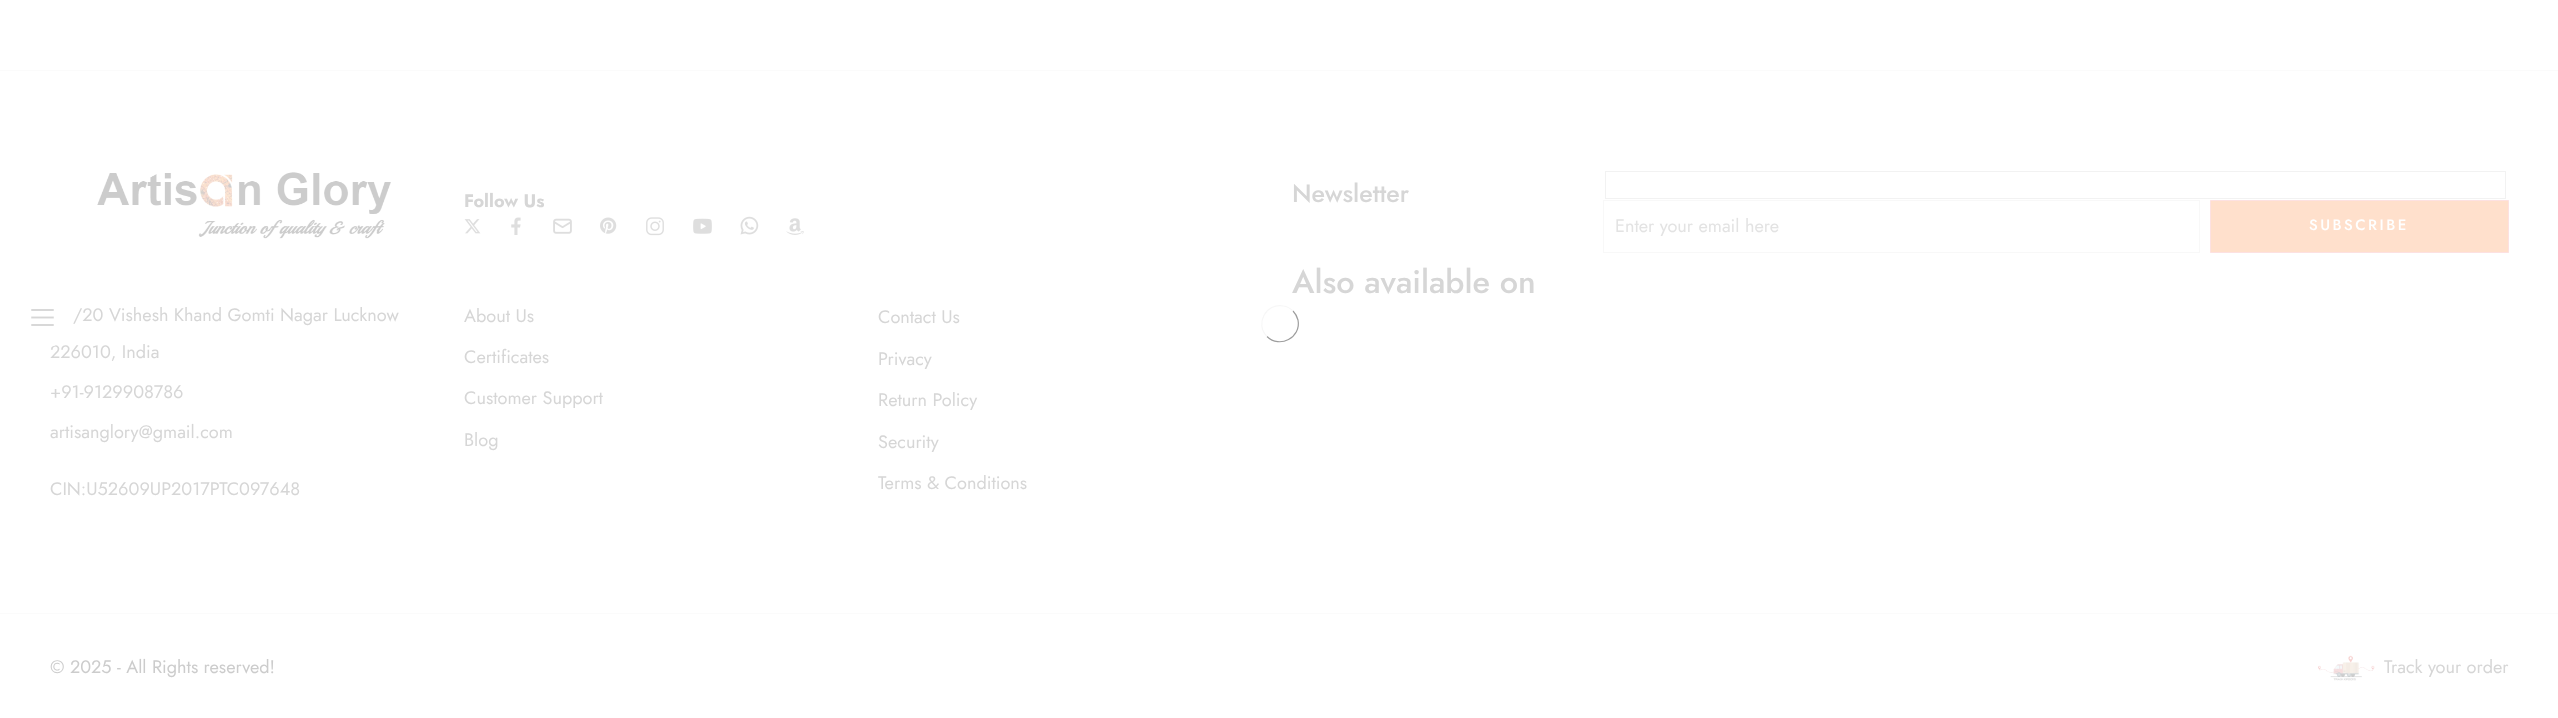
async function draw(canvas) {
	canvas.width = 2558;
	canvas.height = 718;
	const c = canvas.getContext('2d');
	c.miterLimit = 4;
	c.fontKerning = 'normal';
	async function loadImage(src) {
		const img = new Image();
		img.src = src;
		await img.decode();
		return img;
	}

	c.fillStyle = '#fff';
	c.fillRect(0, 0, 2558, 718);
	c.font = '18.1px Jost';
	c.fillStyle = '#d6d6d6';
	c.fillText('226010, India', 50, 358);
	c.fillStyle = '#fff';
	c.beginPath();
	c.arc(43, 318, 30, 0, 2 * Math.PI);
	c.fill();
	c.drawImage(await loadImage('img1.png'), 31, 309, 23, 17);
	c.fillStyle = '#fbfbfb';
	c.fillRect(0, 70, 2558, 1);
	c.drawImage(await loadImage('img2.png'), 97, 172, 294, 67);
	c.fillStyle = '#d6d6d6';
	for (const [text, x, y] of [
		['/20 Vishesh Khand Gomti Nagar Lucknow', 73, 321],
		['+91-9129908786', 50, 398],
		['artisanglory@gmail.com', 50, 438],
		['CIN:U52609UP2017PTC097648', 50, 495],
	]) {
		c.fillText(text, x, y);
	}
	c.font = 'bold 18.1px Jost';
	c.fillText('Follow Us', 464, 207);
	c.drawImage(await loadImage('img3.png'), 464, 219, 17, 15);
	c.drawImage(await loadImage('img4.png'), 511, 217, 10, 18);
	c.drawImage(await loadImage('img5.png'), 553, 218, 19, 16);
	c.drawImage(await loadImage('img6.png'), 600, 217, 17, 17);
	c.drawImage(await loadImage('img7.png'), 646, 217, 18, 19);
	c.drawImage(await loadImage('img8.png'), 693, 218, 19, 16);
	c.drawImage(await loadImage('img9.png'), 740, 216, 19, 19);
	c.drawImage(await loadImage('img10.png'), 786, 218, 18, 17);
	c.font = '18.1px Jost';
	for (const [text, x, y] of [
		['About Us', 464, 322],
		['Certificates', 464, 363],
		['Customer Support', 464, 404],
		['Blog', 464, 446],
		['Contact Us', 878, 323],
		['Privacy', 878, 365],
		['Return Policy', 878, 406],
		['Security', 878, 448],
		['Terms & Conditions', 878, 489],
	]) {
		c.fillText(text, x, y);
	}
	c.font = '500 25px Jost';
	c.fillText('Newsletter', 1292, 202);
	c.strokeStyle = '#f2f2f2';
	c.strokeRect(1605.5, 171.5, 900, 27);
	c.strokeStyle = '#f8f8f8';
	c.strokeRect(1603.5, 200.5, 596, 52);
	c.font = '18.1px Jost';
	c.fillStyle = '#e3e3e3';
	c.fillText('Enter your email here', 1615, 232);
	c.fillStyle = '#ffe0cc';
	c.beginPath();
	c.rect(2210.5, 200.5, 298, 52);
	c.fill();
	c.strokeStyle = '#fde1e1';
	c.stroke();
	c.letterSpacing = '2.5px';
	c.font = '500 15px Jost';
	c.fillStyle = '#fff';
	c.fillText('SUBSCRIBE', 2309, 230);
	c.letterSpacing = '0px';
	c.font = '500 32.5px Jost';
	c.fillStyle = '#d6d6d6';
	c.fillText('Also available on', 1292, 293);
	c.fillStyle = '#fbfbfb';
	c.fillRect(0, 613, 2558, 1);
	c.font = '18.1px Jost';
	c.fillStyle = '#ccc';
	c.fillText('© 2025 - All Rights reserved!', 50, 673);
	c.drawImage(await loadImage('img11.png'), 2318, 655, 57, 26);
	c.fillStyle = '#d6d6d6';
	c.fillText('Track your order', 2384, 673);
	c.beginPath();
	c.moveTo(1293, 311);
	c.bezierCurveTo(1295.5, 313.5, 1297, 316.5, 1298, 320);
	c.bezierCurveTo(1301.5, 337.5, 1279.5, 349, 1267, 336.5);
	c.strokeStyle = '#9d9d9d';
	c.lineWidth = 1.2;
	c.stroke();
	c.beginPath();
	c.moveTo(1267, 336.5);
	c.bezierCurveTo(1254.5, 324, 1266, 302.5, 1283.5, 306);
	c.bezierCurveTo(1287, 306.5, 1290.5, 308.5, 1293, 311);
	c.strokeStyle = '#f7f7f7';
	c.stroke();
}

draw(document.querySelector('canvas'));
